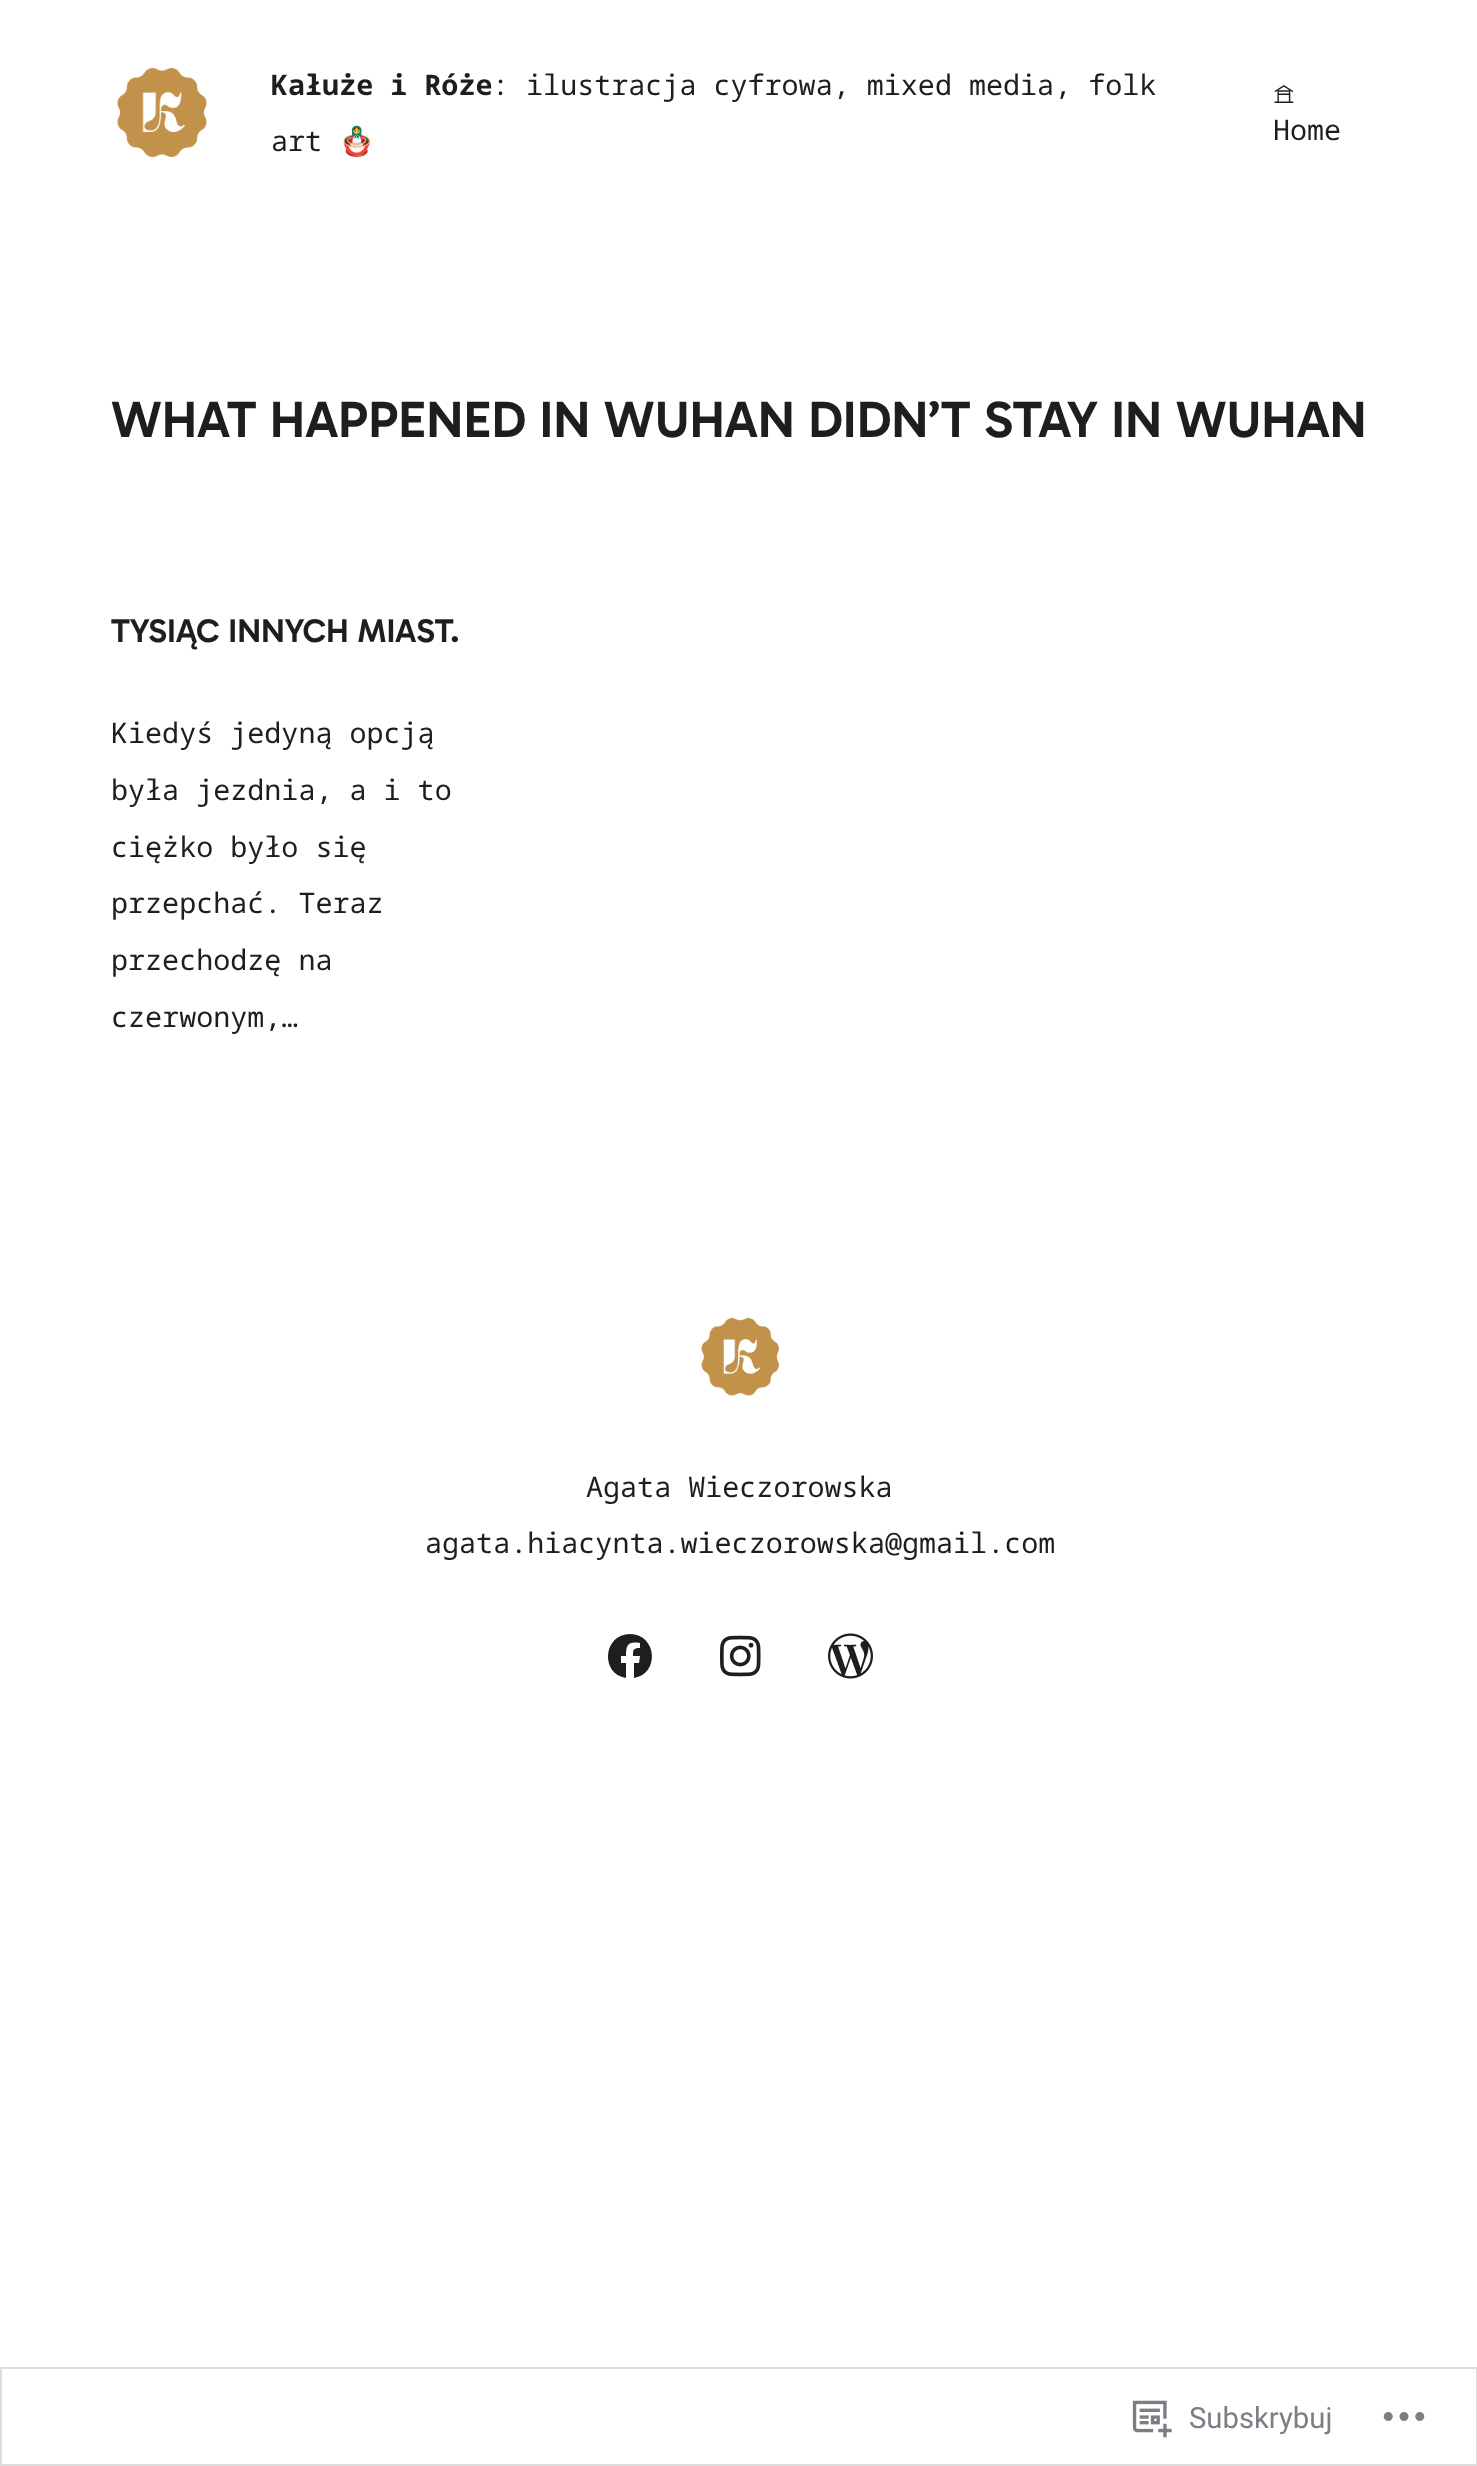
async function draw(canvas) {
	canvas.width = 1477;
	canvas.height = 2466;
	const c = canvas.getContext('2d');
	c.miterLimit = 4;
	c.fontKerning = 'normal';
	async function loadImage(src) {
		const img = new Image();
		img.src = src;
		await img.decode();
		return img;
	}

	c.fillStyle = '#fff';
	c.fillRect(0, 0, 1477, 2466);
	c.drawImage(await loadImage('img1.png'), 117, 68, 90, 89);
	c.font = 'bold 28.4px Noto Sans Mono';
	c.fillStyle = '#1e1e1e';
	c.fillText('Kałuże i Róże', 271, 95);
	c.font = '28.4px Noto Sans Mono';
	c.fillText(': ilustracja cyfrowa, mixed media, folk', 492, 95);
	c.fillText('art', 271, 151);
	c.font = '28.4px Noto Color Emoji';
	c.fillText('🪆', 339, 151);
	c.font = '28.4px Noto Sans Bamum';
	c.fillText('𖠿', 1273, 103);
	c.font = '28.4px Noto Sans Mono';
	c.fillText('Home', 1273, 140);
	c.font = '600 51.75px Gabarito';
	c.fillText('WHAT HAPPENED IN WUHAN DIDN’T STAY IN WUHAN', 111, 437);
	c.font = '600 33.25px Gabarito';
	c.fillText('TYSIĄC INNYCH MIAST.', 111, 642);
	c.font = '28.4px Noto Sans Mono';
	for (const [text, x, y] of [
		['Kiedyś jedyną opcją', 111, 743],
		['była jezdnia, a i to', 111, 800],
		['ciężko było się', 111, 857],
		['przepchać. Teraz', 111, 913],
		['przechodzę na', 111, 970],
		['czerwonym,…', 111, 1027],
	]) {
		c.fillText(text, x, y);
	}
	c.drawImage(await loadImage('img2.png'), 701, 1318, 78, 78);
	c.fillText('Agata Wieczorowska', 586, 1497);
	c.fillText('agata.hiacynta.wieczorowska@gmail.com', 425, 1553);
	c.beginPath();
	c.moveTo(630, 1634);
	c.bezierCurveTo(603, 1634, 600, 1674, 626, 1678);
	c.lineTo(626, 1663);
	c.lineTo(621, 1663);
	c.lineTo(621, 1656);
	c.lineTo(626, 1656);
	c.bezierCurveTo(626, 1645, 628, 1641, 640, 1643);
	c.lineTo(640, 1648);
	c.bezierCurveTo(633, 1648, 633, 1650, 633, 1656);
	c.lineTo(640, 1656);
	c.lineTo(639, 1663);
	c.lineTo(634, 1663);
	c.lineTo(634, 1678);
	c.bezierCurveTo(660, 1674, 657, 1634, 630, 1634);
	c.closePath();
	c.fill();
	c.drawImage(await loadImage('img3.png'), 720, 1635, 41, 42);
	c.drawImage(await loadImage('img4.png'), 828, 1633, 45, 46);
	c.strokeStyle = '#dddddf';
	c.lineWidth = 2;
	c.strokeRect(1, 2368, 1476, 97);
	c.drawImage(await loadImage('img5.png'), 1132, 2400, 40, 38);
	c.font = '29.25px Roboto';
	c.fillStyle = '#7b7f85';
	c.fillText('Subskrybuj', 1189, 2428);
	c.drawImage(await loadImage('img6.png'), 1383, 2412, 42, 9);
}

draw(document.querySelector('canvas'));
